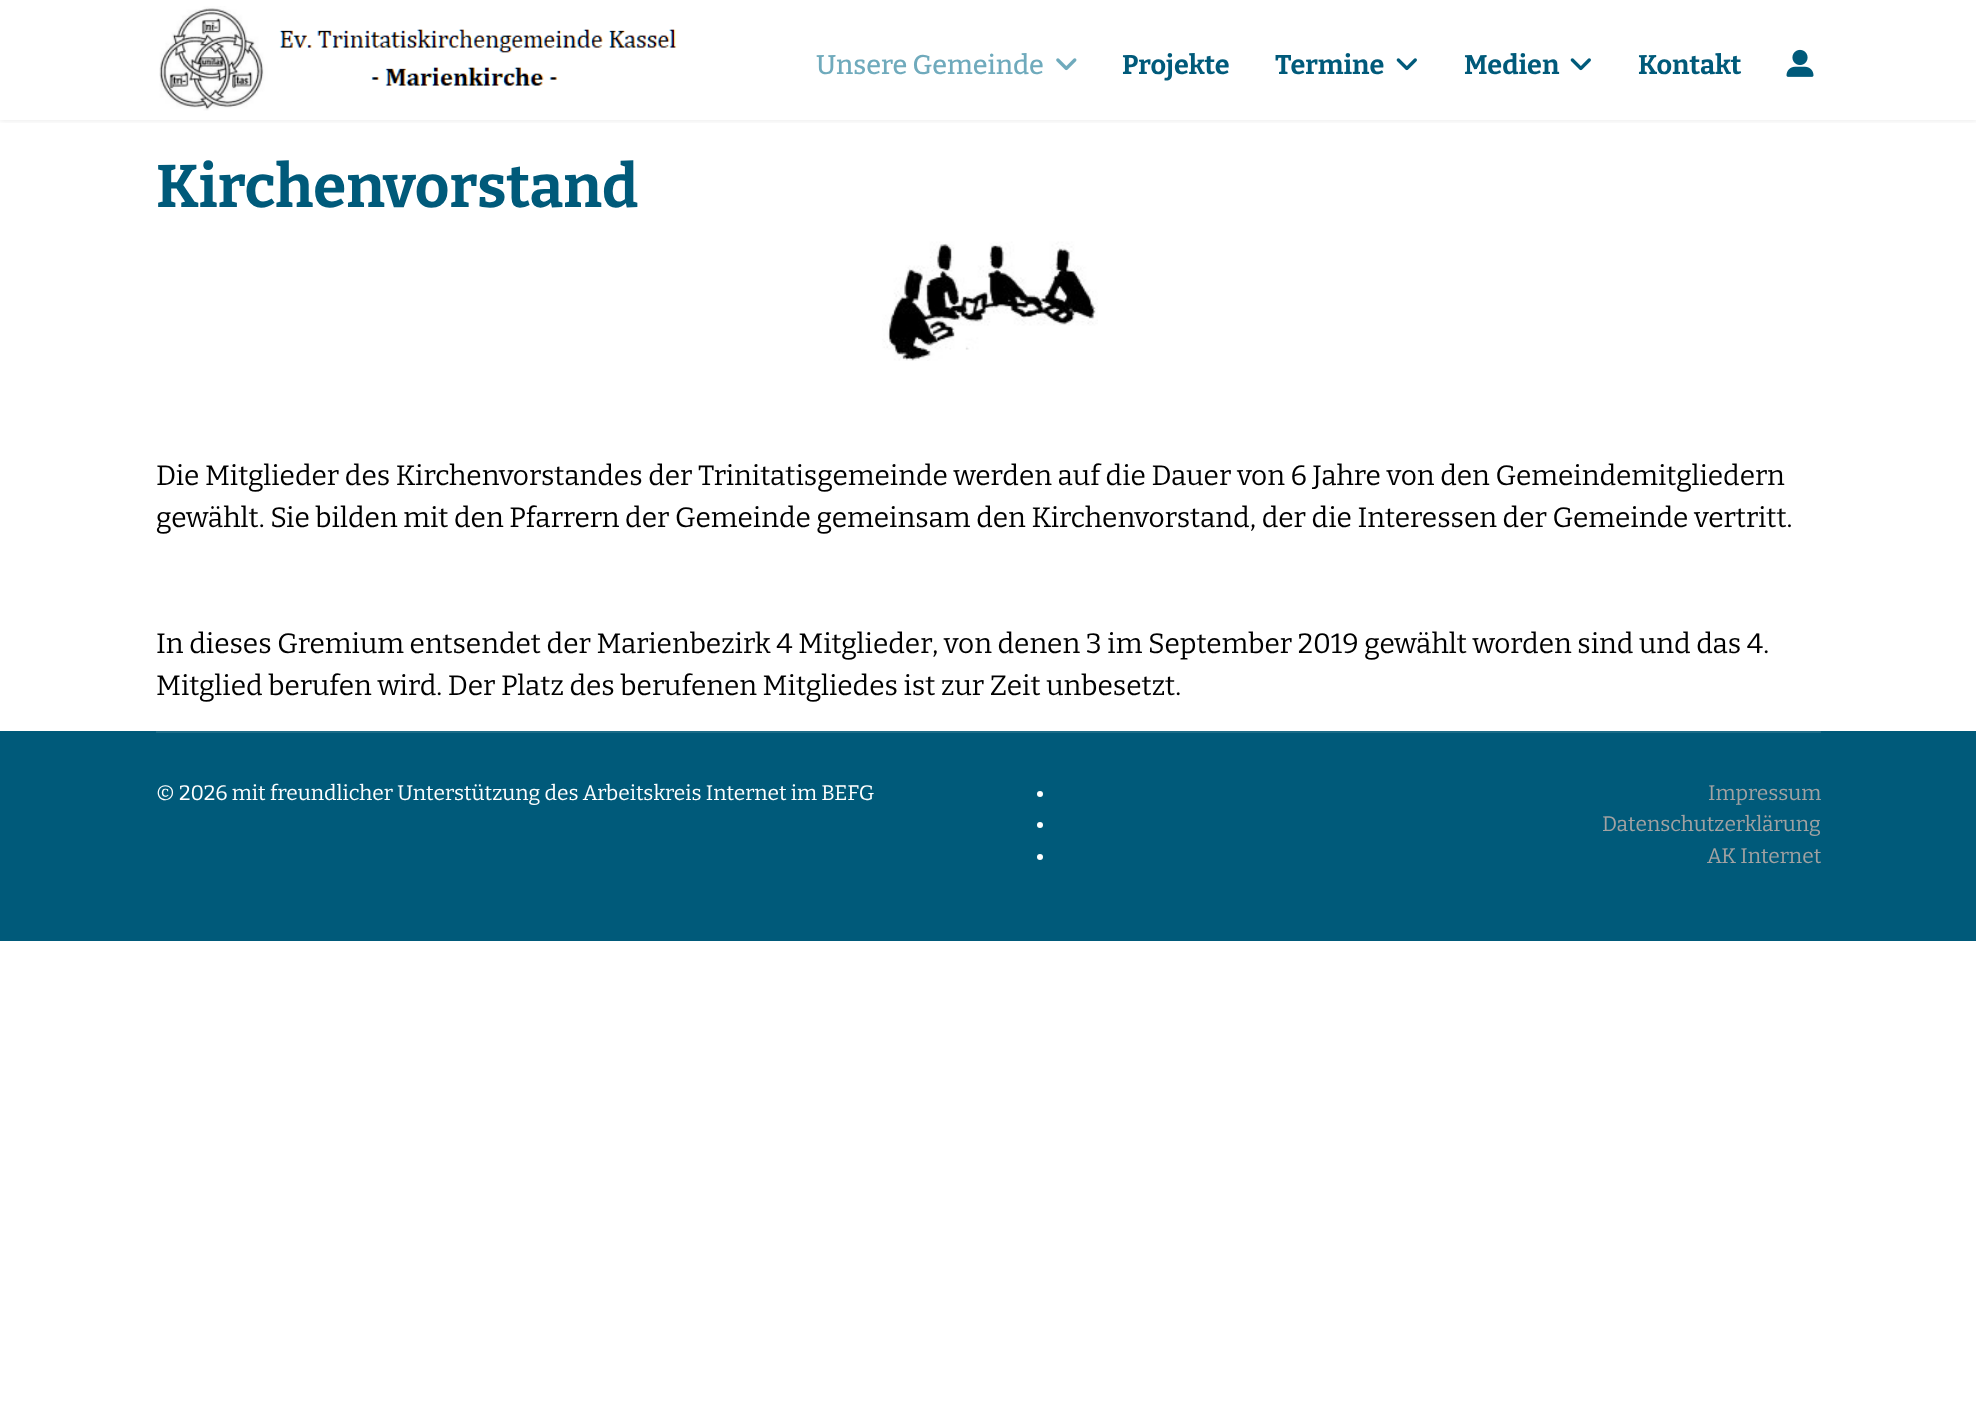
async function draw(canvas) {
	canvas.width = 1976;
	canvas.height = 1424;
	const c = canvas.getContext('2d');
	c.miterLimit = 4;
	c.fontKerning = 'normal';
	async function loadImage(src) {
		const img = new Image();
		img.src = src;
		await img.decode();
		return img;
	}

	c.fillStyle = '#fff';
	c.fillRect(0, 0, 1976, 1424);
	c.save();
	c.beginPath();
	c.rect(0, 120, 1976, 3);
	c.clip();
	c.fillStyle = '#0000001a';
	c.filter = 'blur(3px)';
	c.beginPath();
	c.rect(0, 0, 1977, 120);
	c.fill();
	c.filter = 'none';
	c.restore();
	c.drawImage(await loadImage('img1.png'), 159, 6, 518, 105);
	c.font = '100 27px "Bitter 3"';
	c.fillStyle = '#6faabc';
	c.fillText('Unsere Gemeinde', 816, 74);
	c.drawImage(await loadImage('img2.png'), 1056, 58, 21, 13);
	c.font = '100 27px Bitter';
	c.fillStyle = '#005a7a';
	c.fillText('Projekte', 1122, 74);
	c.fillText('Termine', 1275, 74);
	c.drawImage(await loadImage('img3.png'), 1396, 58, 21, 13);
	c.fillText('Medien', 1464, 74);
	c.drawImage(await loadImage('img3.png'), 1570, 58, 21, 13);
	c.fillText('Kontakt', 1638, 74);
	c.drawImage(await loadImage('img4.png'), 1786, 49, 28, 28);
	c.font = '100 60px Bitter';
	c.fillText('Kirchenvorstand', 156, 207);
	c.drawImage(await loadImage('img5.png'), 882, 241, 216, 120);
	c.font = '100 28px "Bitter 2"';
	c.fillStyle = '#000';
	for (const [text, x, y] of [
		['Die Mitglieder des Kirchenvorstandes der Trinitatisgemeinde werden auf die Dauer von 6 Jahre von den Gemeindemitgliedern', 156, 485],
		['gewählt. Sie bilden mit den Pfarrern der Gemeinde gemeinsam den Kirchenvorstand, der die Interessen der Gemeinde vertritt.', 156, 527],
		['In dieses Gremium entsendet der Marienbezirk 4 Mitglieder, von denen 3 im September 2019 gewählt worden sind und das 4.', 156, 653],
		['Mitglied berufen wird. Der Platz des berufenen Mitgliedes ist zur Zeit unbesetzt.', 156, 695],
	]) {
		c.fillText(text, x, y);
	}
	c.fillStyle = '#005a7a';
	c.fillRect(0, 731, 1976, 210);
	c.fillStyle = '#1a6b87';
	c.fillRect(156, 731, 1665, 2);
	c.font = '100 21px "Bitter 2"';
	c.fillStyle = '#fff';
	c.fillText('© 2026 mit freundlicher Unterstützung des Arbeitskreis Internet im BEFG', 156, 800);
	c.beginPath();
	c.arc(1040, 794, 3, 0, 2 * Math.PI);
	c.fill();
	c.fillStyle = '#a2a2a2';
	c.fillText('Impressum', 1708, 800);
	c.fillStyle = '#fff';
	c.beginPath();
	c.arc(1040, 825, 3, 0, 2 * Math.PI);
	c.fill();
	c.fillStyle = '#a2a2a2';
	c.fillText('Datenschutzerklärung', 1602, 831);
	c.fillStyle = '#fff';
	c.beginPath();
	c.arc(1040, 857, 3, 0, 2 * Math.PI);
	c.fill();
	c.fillStyle = '#a2a2a2';
	c.fillText('AK Internet', 1707, 863);
}

draw(document.querySelector('canvas'));
